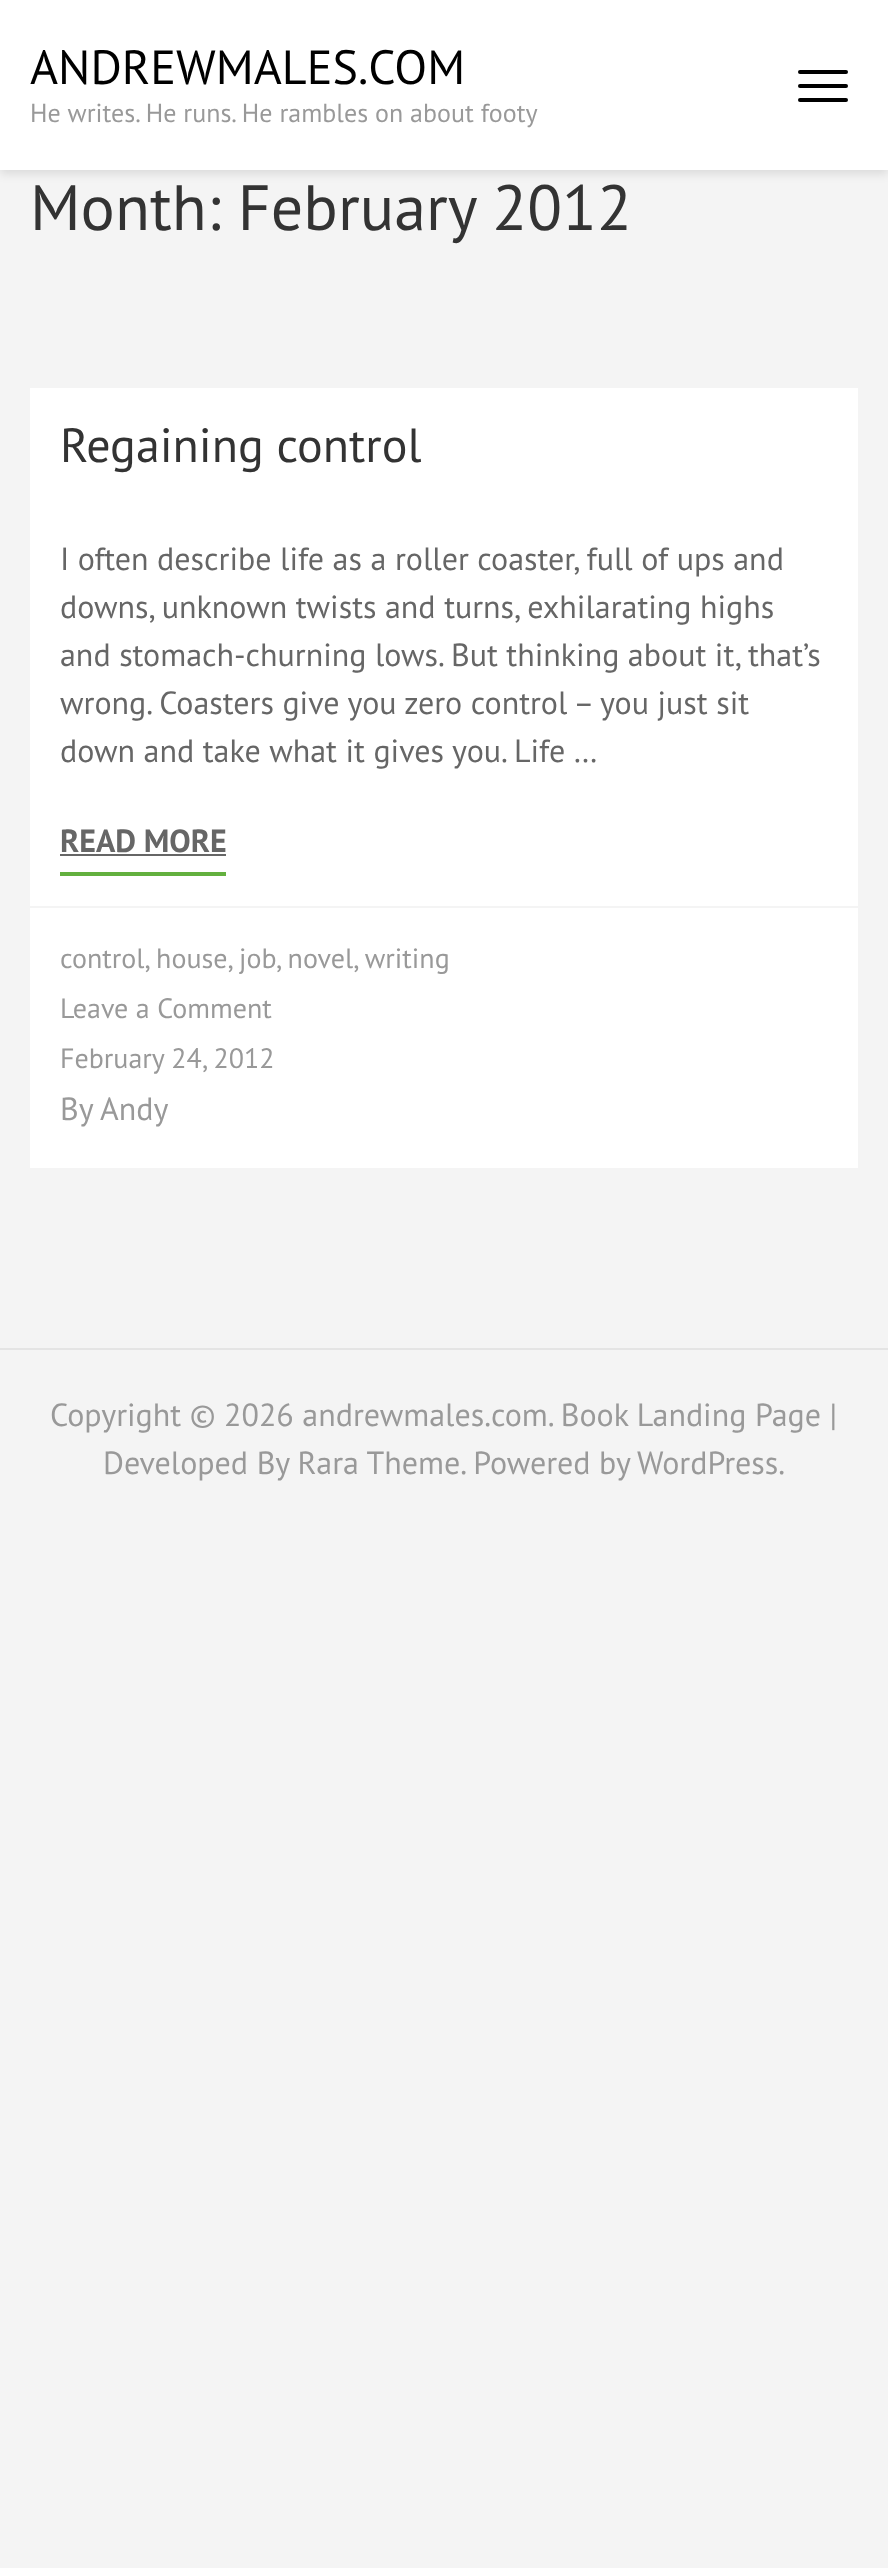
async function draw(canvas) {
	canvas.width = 888;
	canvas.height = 2568;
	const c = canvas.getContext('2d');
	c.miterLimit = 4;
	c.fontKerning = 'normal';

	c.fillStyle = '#f4f4f4';
	c.fillRect(0, 0, 888, 2568);
	c.fillStyle = '#0000001a';
	c.filter = 'blur(5px)';
	c.beginPath();
	c.rect(0, 4, 888, 170);
	c.fill();
	c.filter = 'none';
	c.fillStyle = '#fff';
	c.fillRect(0, 0, 888, 170);
	c.font = '48px PT Sans';
	c.fillStyle = '#000';
	c.fillText('ANDREWMALES.COM', 30, 84);
	c.font = '26px PT Sans';
	c.fillStyle = '#999';
	c.fillText('He writes. He runs. He rambles on about footy', 30, 122);
	c.fillStyle = '#000';
	c.beginPath();
	c.roundRect(798, 70, 50, 4, 2);
	c.fill();
	c.beginPath();
	c.roundRect(798, 84, 50, 4, 2);
	c.fill();
	c.beginPath();
	c.roundRect(798, 98, 50, 4, 2);
	c.fill();
	c.font = '64px PT Sans';
	c.fillStyle = '#333';
	c.fillText('Month: February 2012', 30, 230);
	c.fillStyle = '#fff';
	c.fillRect(30, 388, 828, 518);
	c.font = '48px PT Sans';
	c.fillStyle = '#333';
	c.fillText('Regaining control', 60, 462);
	c.font = '32px PT Sans';
	c.fillStyle = '#666';
	for (const [text, x, y] of [
		['I often describe life as a roller coaster, full of ups and', 60, 570],
		['downs, unknown twists and turns, exhilarating highs', 60, 618],
		['and stomach-churning lows. But thinking about it, that’s', 60, 666],
		['wrong. Coasters give you zero control – you just sit', 60, 714],
		['down and take what it gives you. Life …', 60, 762],
	]) {
		c.fillText(text, x, y);
	}
	c.fillStyle = '#63b03e';
	c.fillRect(60, 872, 166, 4);
	c.font = 'bold 32px PT Sans';
	c.fillStyle = '#666';
	c.fillText('READ MORE', 60, 852);
	c.fillRect(60, 854, 166, 2);
	c.fillStyle = '#fff';
	c.fillRect(30, 908, 828, 260);
	c.font = '28px PT Sans';
	c.fillStyle = '#999';
	for (const [text, x, y] of [
		['control, house, job', 60, 968],
		[', novel, writing', 276, 968],
		['Leave a Comment', 60, 1018],
		['February 24, 2012', 60, 1068],
	]) {
		c.fillText(text, x, y);
	}
	c.font = '32px PT Sans';
	c.fillText('By', 60, 1120);
	c.fillText('Andy', 100, 1120);
	c.fillStyle = '#e4e4e4';
	c.fillRect(0, 1348, 888, 2);
	c.fillStyle = '#999';
	for (const [text, x, y] of [
		['Copyright © 2026 andrewmales.com. Book Landing Page |', 50, 1426],
		['Developed By Rara Theme. Powered by', 103, 1474],
		['WordPress.', 637, 1474],
	]) {
		c.fillText(text, x, y);
	}
}

draw(document.querySelector('canvas'));
